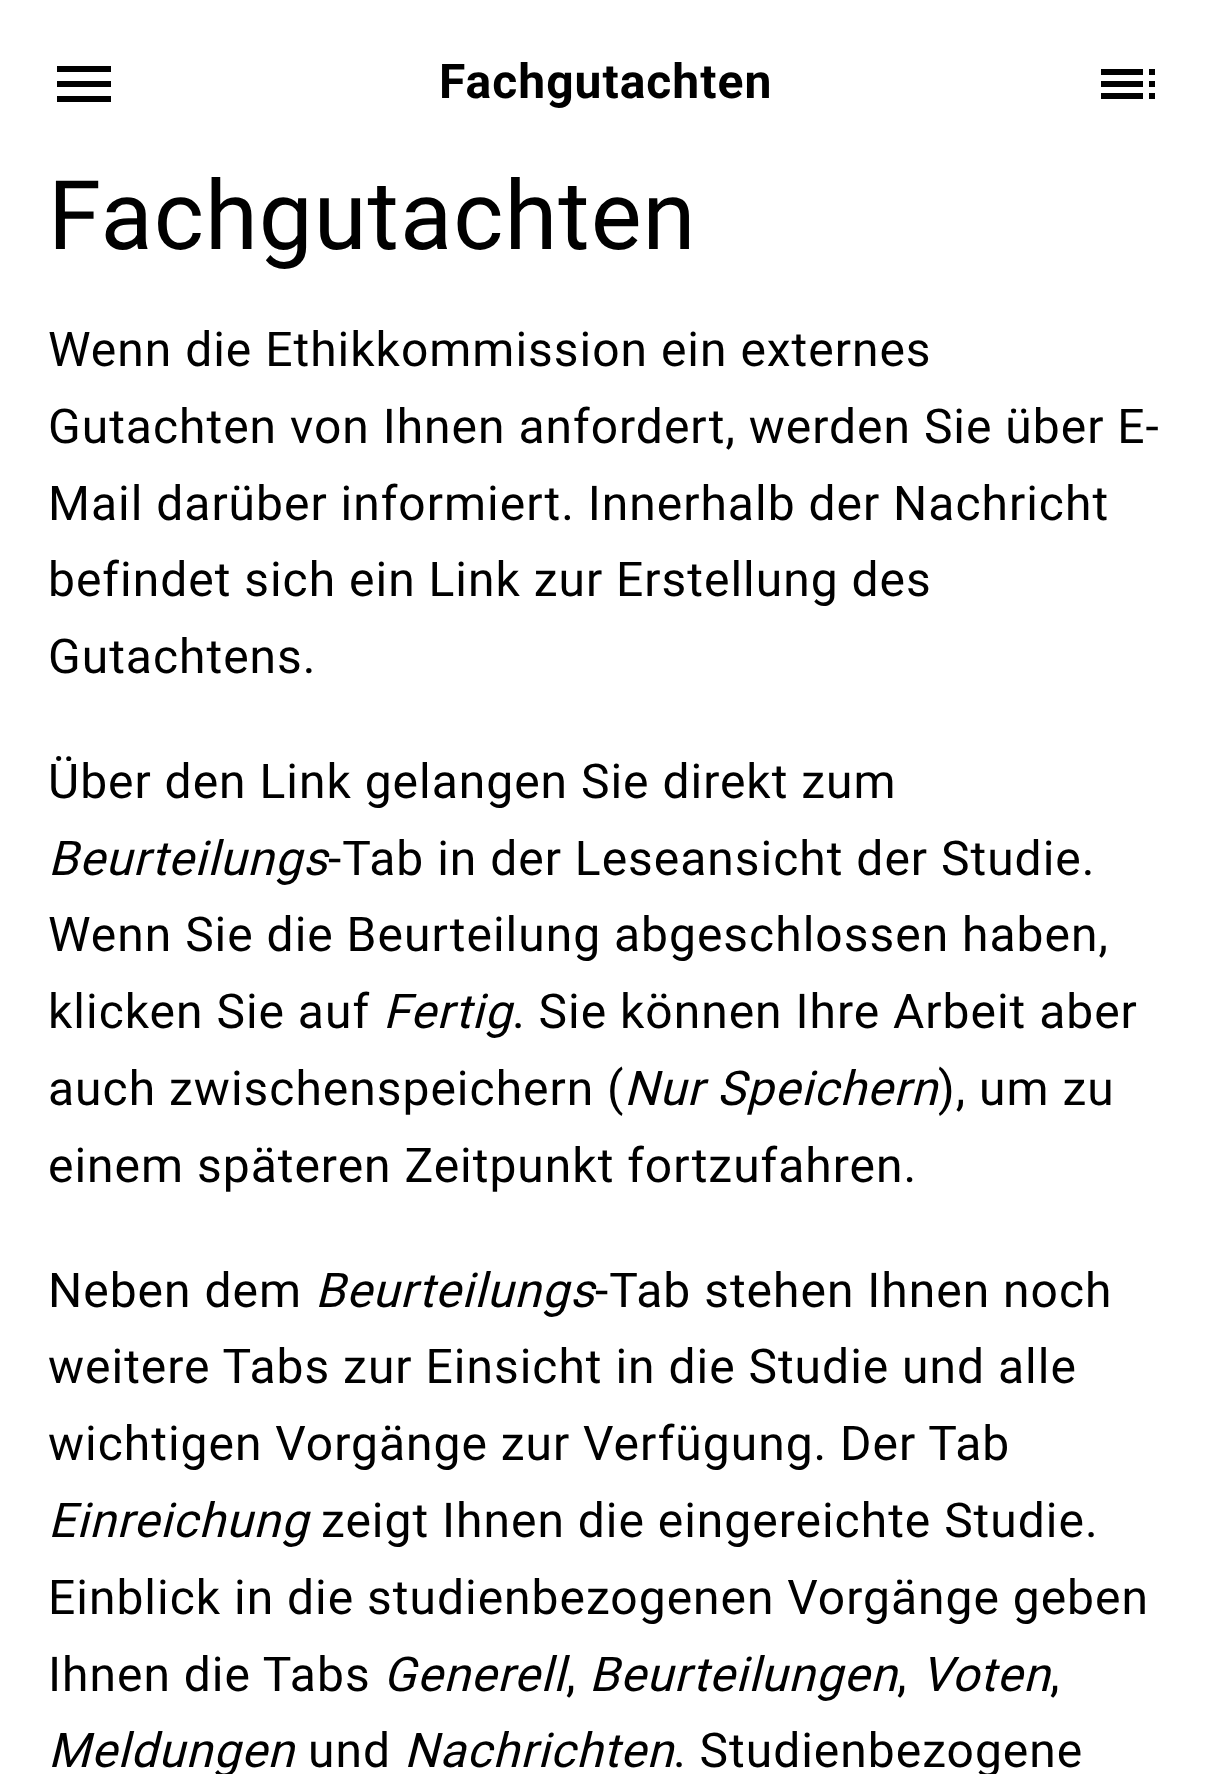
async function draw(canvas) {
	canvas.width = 1211;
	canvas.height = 1774;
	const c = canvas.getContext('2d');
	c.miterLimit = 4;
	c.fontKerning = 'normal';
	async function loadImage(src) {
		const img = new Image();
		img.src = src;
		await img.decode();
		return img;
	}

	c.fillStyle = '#fff';
	c.fillRect(0, 0, 1211, 1774);
	c.fillStyle = '#000';
	c.beginPath();
	c.moveTo(57, 102);
	c.lineTo(111, 102);
	c.lineTo(111, 96);
	c.lineTo(57, 96);
	c.closePath();
	c.moveTo(57, 87);
	c.lineTo(111, 87);
	c.lineTo(111, 81);
	c.lineTo(57, 81);
	c.closePath();
	c.moveTo(57, 66);
	c.lineTo(57, 72);
	c.lineTo(111, 72);
	c.lineTo(111, 66);
	c.closePath();
	c.fill();
	c.letterSpacing = '1px';
	c.font = 'bold 48px Roboto';
	c.fillText('Fachgutachten', 439, 98);
	c.drawImage(await loadImage('img1.png'), 1101, 69, 54, 30);
	c.font = '96px Roboto';
	c.fillText('Fachgutachten', 48, 249);
	c.font = '48px Roboto';
	for (const [text, x, y] of [
		['Wenn die Ethikkommission ein externes', 48, 366],
		['Gutachten von Ihnen anfordert, werden Sie über E-', 48, 443],
		['Mail darüber informiert. Innerhalb der Nachricht', 48, 520],
		['befindet sich ein Link zur Erstellung des', 48, 596],
		['Gutachtens.', 48, 673],
		['Über den Link gelangen Sie direkt zum', 48, 798],
	]) {
		c.fillText(text, x, y);
	}
	c.font = 'italic 48px Roboto';
	c.fillText('Beurteilungs', 48, 875);
	c.font = '48px Roboto';
	for (const [text, x, y] of [
		['-Tab in der Leseansicht der Studie.', 328, 875],
		['Wenn Sie die Beurteilung abgeschlossen haben,', 48, 951],
		['klicken Sie auf', 48, 1028],
	]) {
		c.fillText(text, x, y);
	}
	c.font = 'italic 48px Roboto';
	c.fillText('Fertig', 383, 1028);
	c.font = '48px Roboto';
	c.fillText('. Sie können Ihre Arbeit aber', 512, 1028);
	c.fillText('auch zwischenspeichern (', 48, 1105);
	c.font = 'italic 48px Roboto';
	c.fillText('Nur Speichern', 624, 1105);
	c.font = '48px Roboto';
	for (const [text, x, y] of [
		['), um zu', 938, 1105],
		['einem späteren Zeitpunkt fortzufahren.', 48, 1182],
		['Neben dem', 48, 1307],
	]) {
		c.fillText(text, x, y);
	}
	c.font = 'italic 48px Roboto';
	c.fillText('Beurteilungs', 315, 1307);
	c.font = '48px Roboto';
	for (const [text, x, y] of [
		['-Tab stehen Ihnen noch', 595, 1307],
		['weitere Tabs zur Einsicht in die Studie und alle', 48, 1383],
		['wichtigen Vorgänge zur Verfügung. Der Tab', 48, 1460],
	]) {
		c.fillText(text, x, y);
	}
	c.font = 'italic 48px Roboto';
	c.fillText('Einreichung', 48, 1537);
	c.font = '48px Roboto';
	for (const [text, x, y] of [
		['zeigt Ihnen die eingereichte Studie.', 321, 1537],
		['Einblick in die studienbezogenen Vorgänge geben', 48, 1614],
		['Ihnen die Tabs', 48, 1691],
	]) {
		c.fillText(text, x, y);
	}
	c.font = 'italic 48px Roboto';
	for (const [text, x, y] of [
		['Generell', 383, 1691],
		['Beurteilungen', 589, 1691],
		['Voten', 921, 1691],
	]) {
		c.fillText(text, x, y);
	}
	c.font = '48px Roboto';
	for (const [text, x, y] of [
		[',', 566, 1691],
		[',', 897, 1691],
		[',', 1050, 1691],
	]) {
		c.fillText(text, x, y);
	}
	c.font = 'italic 48px Roboto';
	c.fillText('Meldungen', 48, 1767);
	c.font = '48px Roboto';
	c.fillText('und', 308, 1767);
	c.font = 'italic 48px Roboto';
	c.fillText('Nachrichten', 404, 1767);
	c.font = '48px Roboto';
	c.fillText('. Studienbezogene', 673, 1767);
}

draw(document.querySelector('canvas'));
